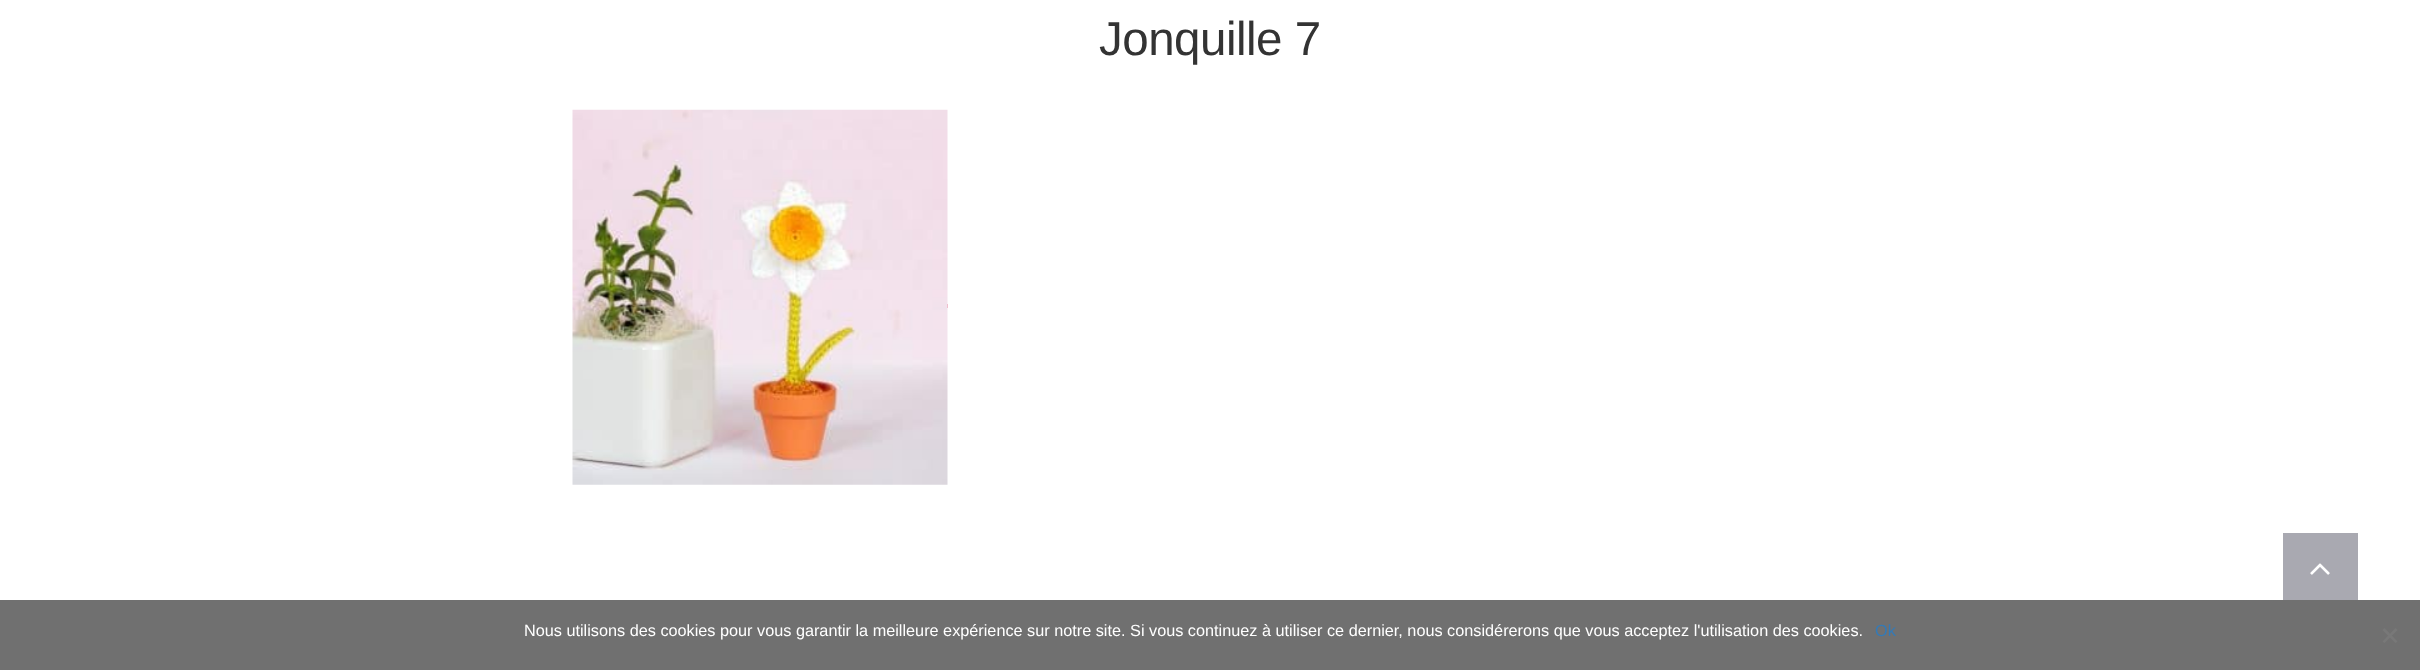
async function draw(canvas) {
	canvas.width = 2420;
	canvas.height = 670;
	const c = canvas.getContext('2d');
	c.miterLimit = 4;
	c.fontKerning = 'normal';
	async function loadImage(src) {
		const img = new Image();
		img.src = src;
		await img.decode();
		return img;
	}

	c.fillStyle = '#fff';
	c.fillRect(0, 0, 2420, 670);
	c.letterSpacing = '-0.5px';
	c.font = '47.5px Liberation Sans';
	c.fillStyle = '#333';
	c.fillText('Jonquille 7', 1099, 55);
	c.fillStyle = '#ee9cb0';
	c.fillRect(947, 304, 1, 4);
	c.drawImage(await loadImage('img1.png'), 572, 109, 376, 376);
	c.fillStyle = '#a9a9b1';
	c.fillRect(2283, 533, 75, 67);
	c.drawImage(await loadImage('img2.png'), 2310, 563, 20, 12);
	c.fillStyle = '#707070';
	c.fillRect(0, 600, 2420, 70);
	c.letterSpacing = '0px';
	c.font = '16.25px Liberation Sans';
	c.fillStyle = '#fff';
	c.fillText('Nous utilisons des cookies pour vous garantir la meilleure expérience sur notre site. Si vous continuez à utiliser ce dernier, nous considérerons que vous acceptez l\'utilisation des cookies.', 524, 636);
	c.fillStyle = '#337ab7';
	c.fillText('Ok', 1875, 636);
	c.fillStyle = '#787878';
	c.beginPath();
	c.moveTo(2395.5, 628);
	c.lineTo(2397.5, 630);
	c.lineTo(2384.5, 643);
	c.lineTo(2382.5, 641.5);
	c.closePath();
	c.fill();
	c.beginPath();
	c.moveTo(2382.5, 630);
	c.lineTo(2384.5, 628);
	c.lineTo(2397.5, 641.5);
	c.lineTo(2395.5, 643);
	c.closePath();
	c.fill();
}

draw(document.querySelector('canvas'));
